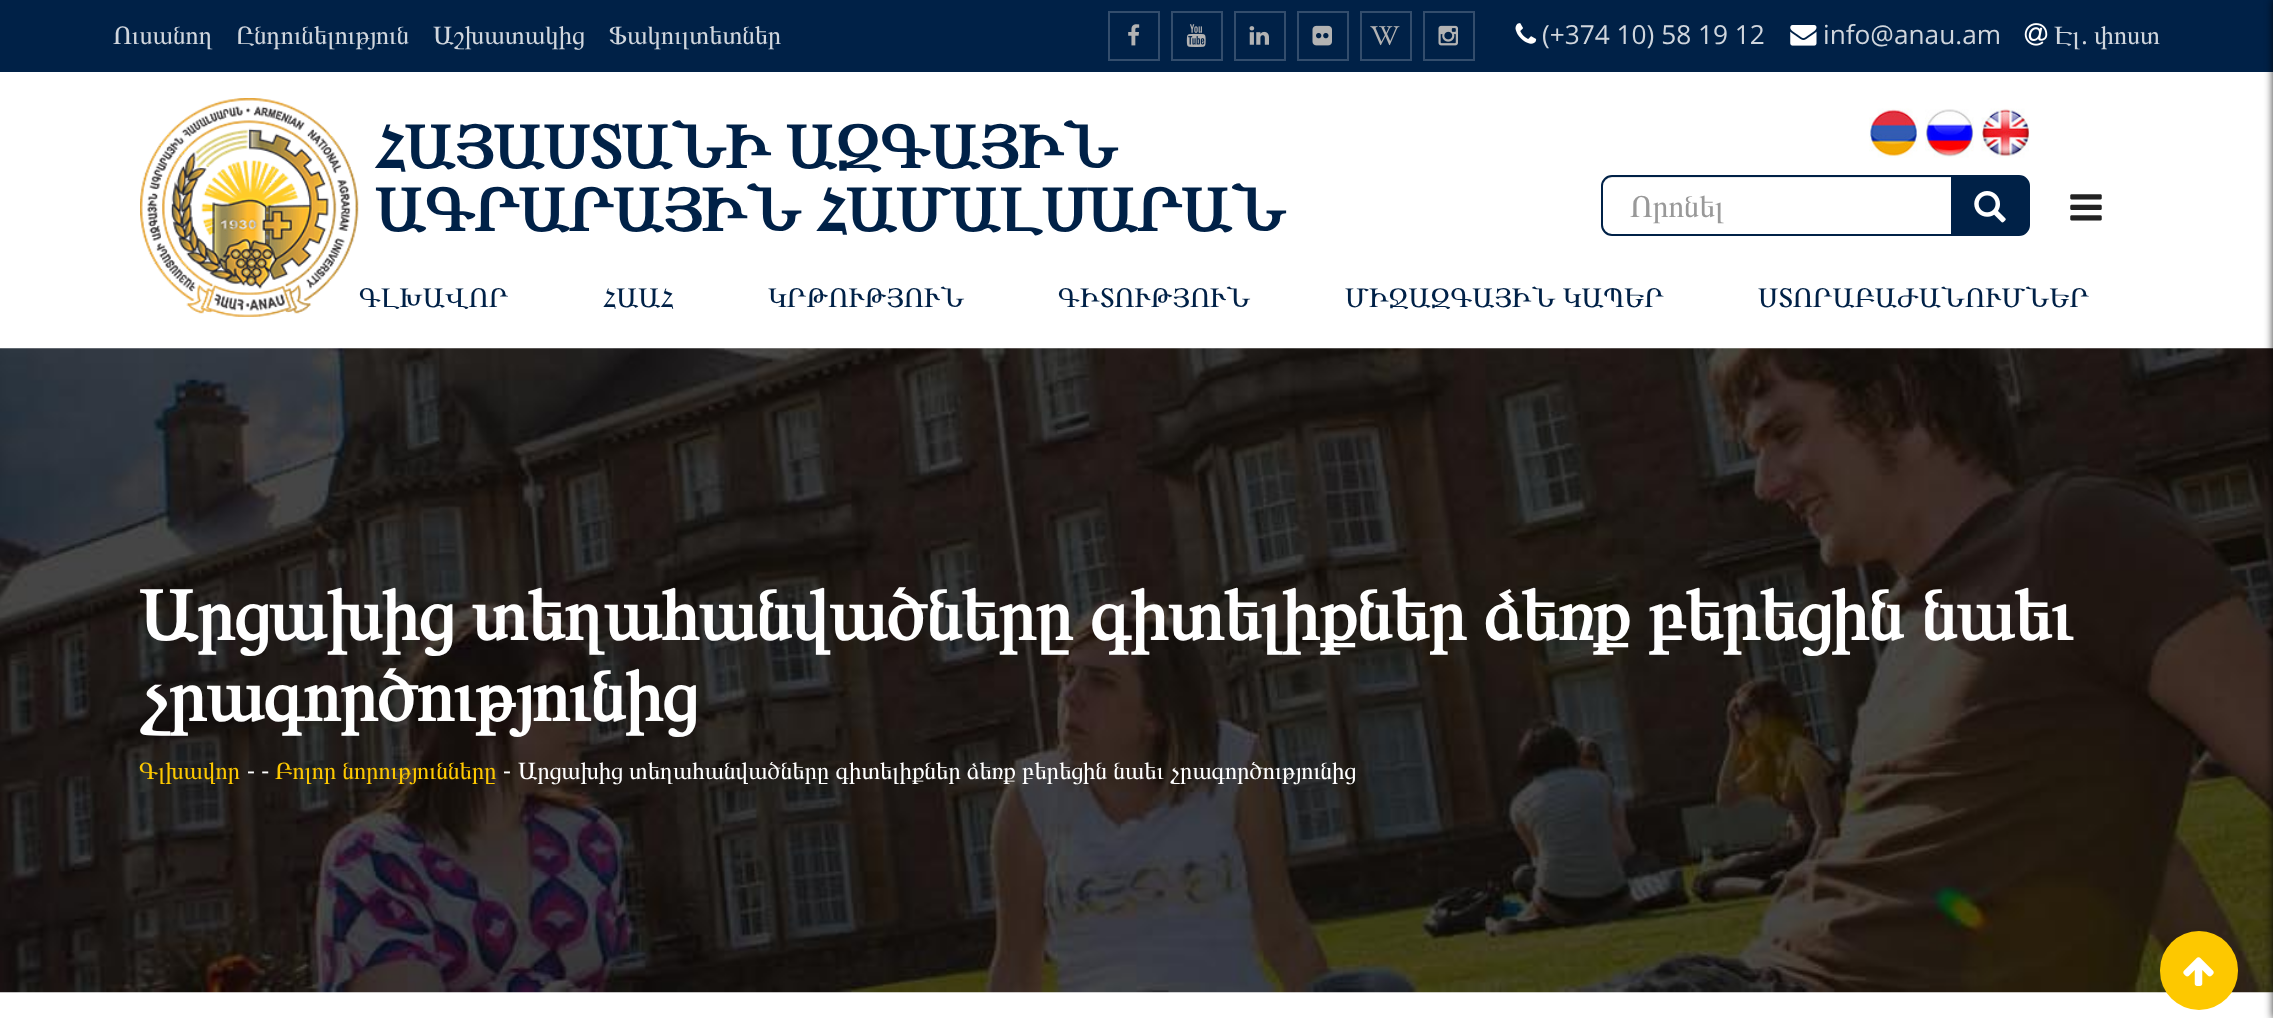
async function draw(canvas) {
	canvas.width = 2273;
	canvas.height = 1018;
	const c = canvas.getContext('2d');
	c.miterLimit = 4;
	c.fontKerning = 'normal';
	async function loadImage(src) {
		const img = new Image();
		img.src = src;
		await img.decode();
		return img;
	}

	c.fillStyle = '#fff';
	c.fillRect(0, 0, 2273, 1018);
	c.fillStyle = '#002147';
	c.fillRect(0, 0, 2273, 72);
	c.font = '26.25px FreeSerif';
	c.fillStyle = '#d0d6dd';
	for (const [text, x, y] of [
		['Ուսանող', 113, 44],
		['Ընդունելություն', 237, 44],
		['Աշխատակից', 433, 44],
		['Ֆակուլտետներ', 609, 44],
	]) {
		c.fillText(text, x, y);
	}
	c.strokeStyle = '#334d6c';
	c.lineWidth = 2;
	c.strokeRect(1109, 12, 50, 48);
	c.drawImage(await loadImage('img1.png'), 1128, 24, 12, 22);
	c.strokeRect(1172, 12, 50, 48);
	c.drawImage(await loadImage('img2.png'), 1186, 24, 20, 23);
	c.strokeRect(1235, 12, 50, 48);
	c.drawImage(await loadImage('img3.png'), 1249, 26, 20, 19);
	c.strokeRect(1298, 12, 50, 48);
	c.drawImage(await loadImage('img4.png'), 1312, 25, 20, 21);
	c.strokeRect(1361, 12, 50, 48);
	c.drawImage(await loadImage('img5.png'), 1370, 26, 30, 20);
	c.strokeRect(1424, 12, 50, 48);
	c.drawImage(await loadImage('img6.png'), 1438, 25, 20, 21);
	c.drawImage(await loadImage('img7.png'), 1515, 23, 22, 21);
	c.font = '26.25px Open Sans';
	c.fillText('(+374 10) 58 19 12', 1542, 44);
	c.drawImage(await loadImage('img8.png'), 1790, 25, 27, 21);
	c.fillText('info@anau.am', 1823, 44);
	c.drawImage(await loadImage('img9.png'), 2024, 23, 24, 23);
	c.font = '26.25px FreeSerif';
	c.fillText('Էլ', 2054, 44);
	c.font = '26.25px Open Sans';
	c.fillText('.', 2081, 44);
	c.font = '26.25px FreeSerif';
	c.fillText('փոստ', 2094, 44);
	c.drawImage(await loadImage('img10.png'), 140, 98, 219, 219);
	c.font = 'bold 63px FreeSerif';
	c.fillStyle = '#002147';
	c.fillText('ՀԱՅԱՍՏԱՆԻ ԱԶԳԱՅԻՆ', 375, 168);
	c.fillText('ԱԳՐԱՐԱՅԻՆ ՀԱՄԱԼՍԱՐԱՆ', 375, 231);
	c.drawImage(await loadImage('img11.png'), 1869, 108, 49, 50);
	c.drawImage(await loadImage('img12.png'), 1925, 109, 49, 49);
	c.drawImage(await loadImage('img13.png'), 1981, 108, 49, 50);
	c.drawImage(await loadImage('img14.png'), 2070, 194, 32, 27);
	c.drawImage(await loadImage('img16.png'), 0, 348, 2273, 645);
	c.fillStyle = '#000000cc';
	c.filter = 'blur(4.5px)';
	c.beginPath();
	c.rect(2273, 0, 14, 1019);
	c.fill();
	c.filter = 'none';
	c.fillStyle = '#ececec';
	c.beginPath();
	c.moveTo(1612, 178);
	c.lineTo(1951, 178);
	c.lineTo(1951, 177);
	c.lineTo(1612, 177);
	c.bezierCurveTo(1606, 177, 1603, 182, 1603, 187);
	c.bezierCurveTo(1603, 182, 1607, 178, 1612, 178);
	c.closePath();
	c.fill();
	c.beginPath();
	c.roundRect(1602, 176, 350, 59, [10, 0, 0, 10]);
	c.strokeStyle = '#002147';
	c.stroke();
	c.font = '31.5px FreeSerif';
	c.fillStyle = '#999';
	c.fillText('Որոնել', 1630, 217);
	c.fillStyle = '#002147';
	c.beginPath();
	c.roundRect(1952, 176, 77, 59, [0, 10, 10, 0]);
	c.fill();
	c.stroke();
	c.drawImage(await loadImage('img15.png'), 1974, 191, 32, 32);
	c.font = '28px FreeSerif';
	for (const [text, x, y] of [
		['ԳԼԽԱՎՈՐ', 359, 307],
		['ՀԱԱՀ', 603, 307],
		['ԿՐԹՈՒԹՅՈՒՆ', 768, 307],
		['ԳԻՏՈՒԹՅՈՒՆ', 1058, 307],
		['ՄԻՋԱԶԳԱՅԻՆ ԿԱՊԵՐ', 1345, 307],
		['ՍՏՈՐԱԲԱԺԱՆՈՒՄՆԵՐ', 1758, 307],
	]) {
		c.fillText(text, x, y);
	}
	c.font = 'bold 73.5px FreeSerif';
	c.fillStyle = '#fff';
	c.fillText('Արցախից տեղահանվածները գիտելիքներ ձեռք բերեցին նաեւ', 139, 640);
	c.fillText('չրագործությունից', 139, 721);
	c.font = '24.5px FreeSerif';
	c.fillStyle = '#fdc800';
	c.fillText('Գլխավոր', 139, 779);
	c.font = '24.5px Open Sans';
	c.fillStyle = '#fff';
	c.fillText('- -', 247, 779);
	c.font = '24.5px FreeSerif';
	c.fillStyle = '#fdc800';
	c.fillText('Բոլոր նորությունները', 275, 779);
	c.font = '24.5px Open Sans';
	c.fillStyle = '#fff';
	c.fillText('-', 503, 779);
	c.wordSpacing = '0.25px';
	c.font = '24.5px FreeSerif';
	c.fillText('Արցախից տեղահանվածները գիտելիքներ ձեռք բերեցին նաեւ չրագործությունից', 518, 779);
	c.fillStyle = '#fdc800';
	c.beginPath();
	c.roundRect(2160, 931, 78, 79, 39);
	c.fill();
	c.drawImage(await loadImage('img17.png'), 2183, 957, 31, 29);
}

draw(document.querySelector('canvas'));
